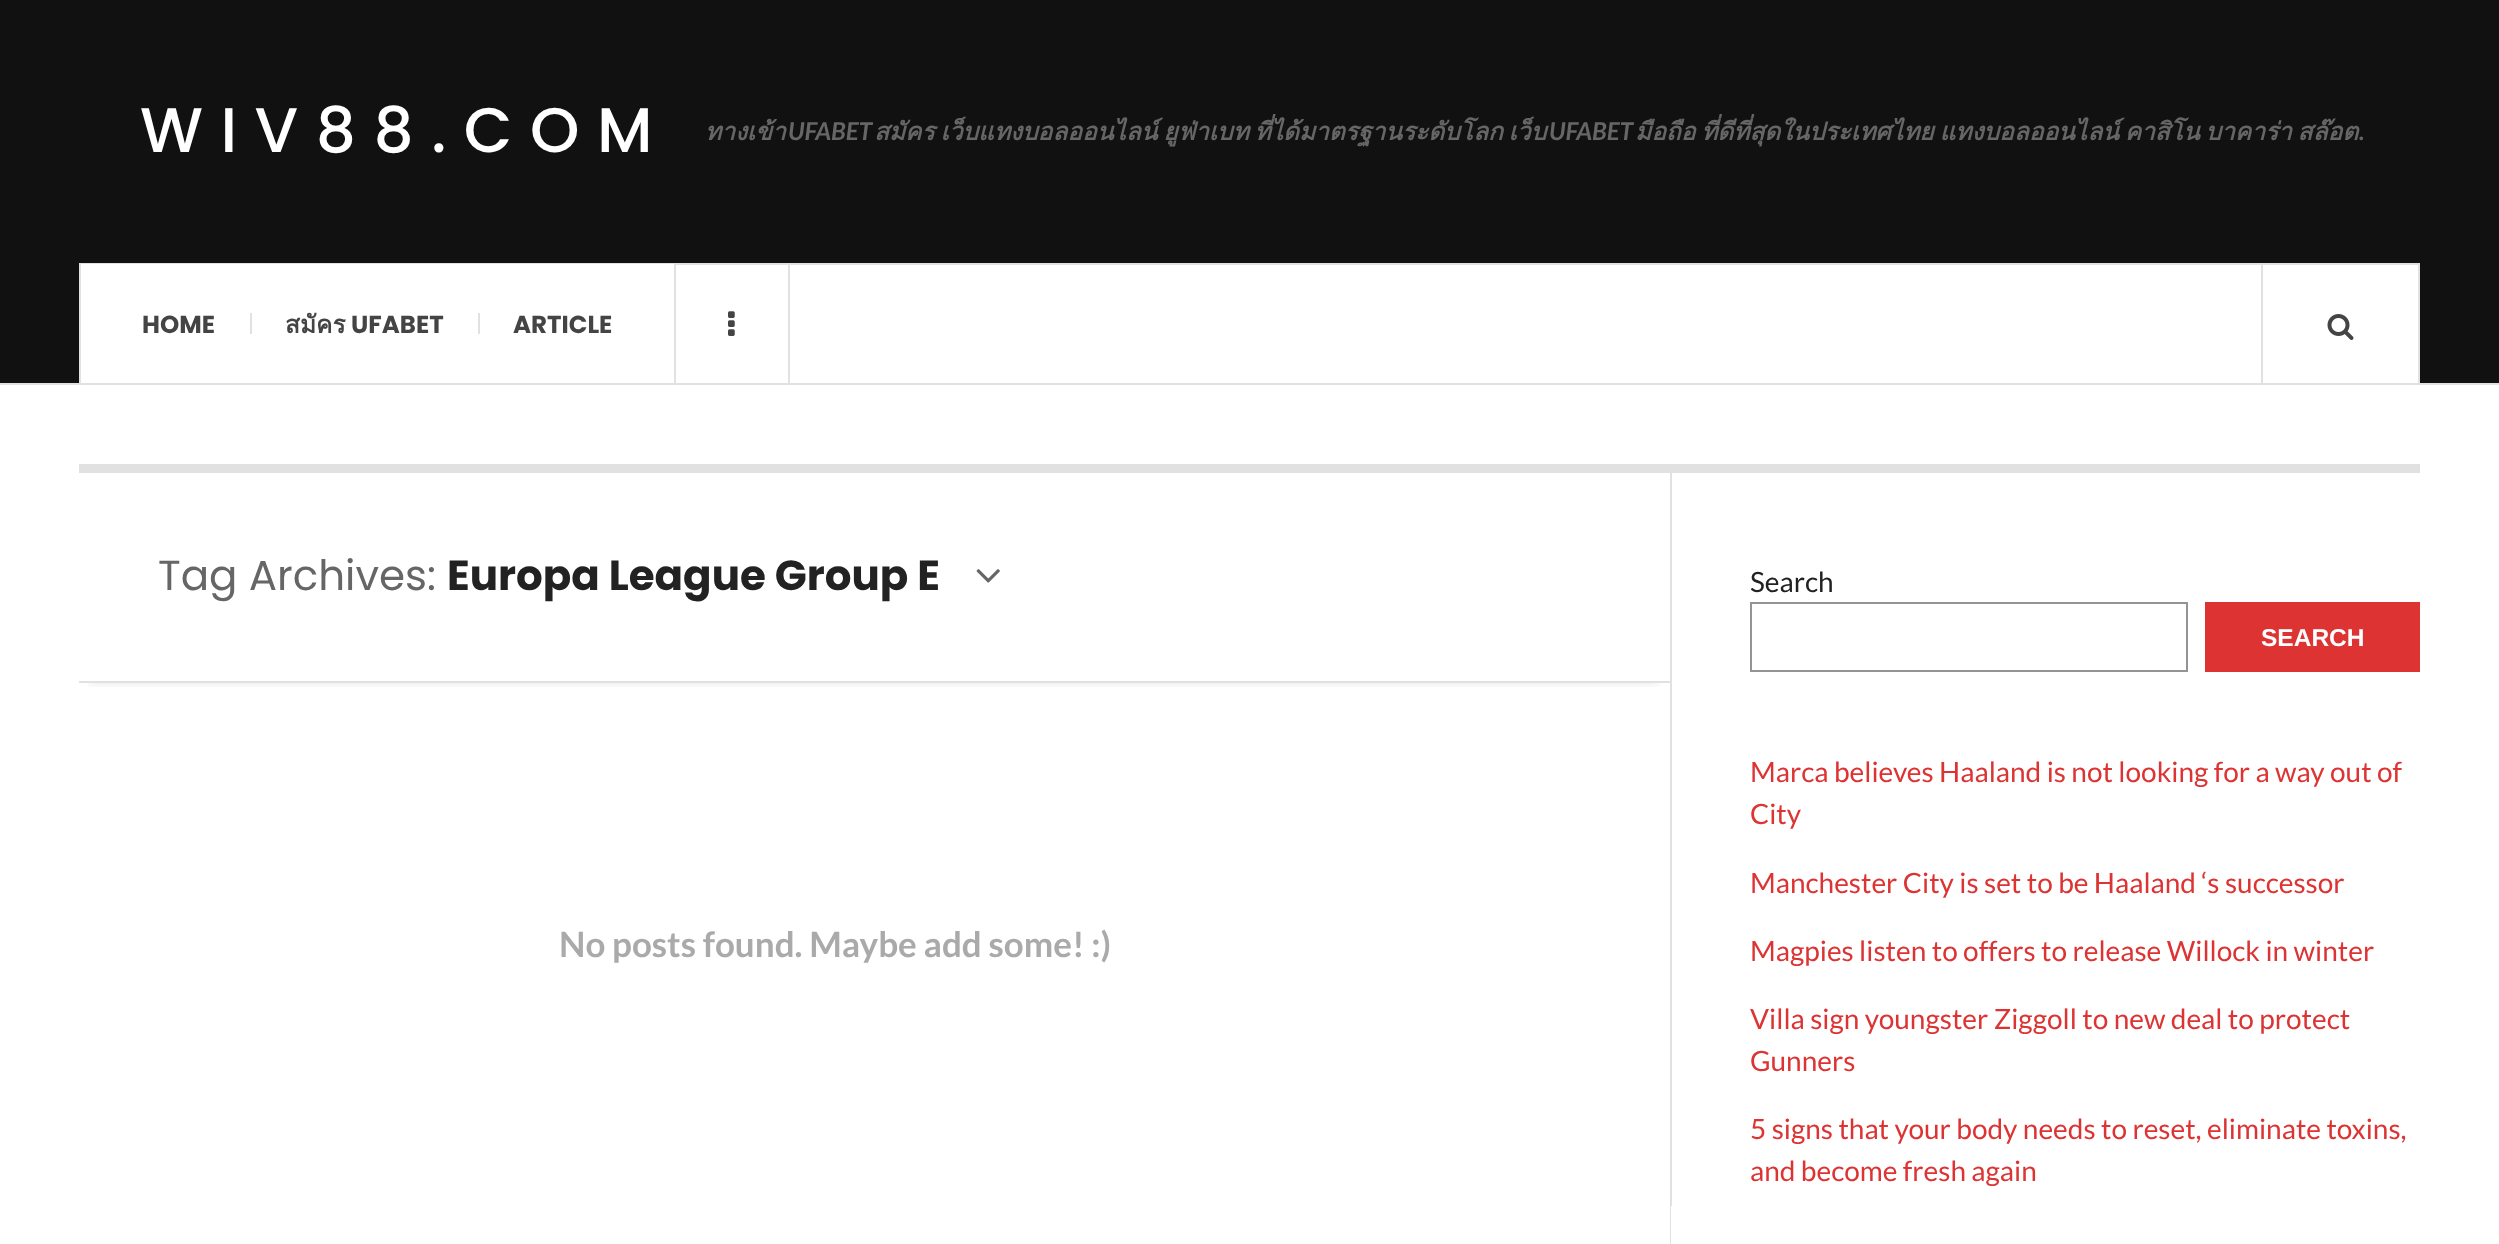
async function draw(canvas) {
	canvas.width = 2499;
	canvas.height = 1244;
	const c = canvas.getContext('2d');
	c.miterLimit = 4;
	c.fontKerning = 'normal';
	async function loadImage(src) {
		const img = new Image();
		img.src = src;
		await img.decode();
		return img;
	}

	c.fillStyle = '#fff';
	c.fillRect(0, 0, 2499, 1244);
	c.fillStyle = '#111';
	c.fillRect(0, 0, 2499, 383);
	c.fillStyle = '#e1e1e1';
	c.fillRect(0, 383, 2499, 2);
	c.letterSpacing = '17.5px';
	c.font = '500 63px Poppins';
	c.fillStyle = '#fff';
	c.fillText('WIV88.COM', 140, 152);
	c.letterSpacing = '0px';
	c.font = 'italic bold 24.5px Loma';
	c.fillStyle = '#666';
	c.fillText('ทางเข้า', 705, 140);
	c.font = 'italic bold 24.5px Lato';
	c.fillText('UFABET', 788, 140);
	c.wordSpacing = '-2.5px';
	c.font = 'italic bold 24.5px Loma';
	c.fillText('สมัคร เว็บแทงบอลออนไลน์ ยูฟ่าเบท ที่ได้มาตรฐานระดับโลก เว็บ', 874, 140);
	c.wordSpacing = '0px';
	c.font = 'italic bold 24.5px Lato';
	c.fillText('UFABET', 1549, 140);
	c.wordSpacing = '-2.5px';
	c.font = 'italic bold 24.5px Loma';
	c.fillText('มือถือ ที่ดีที่สุดในประเทศไทย แทงบอลออนไลน์ คาสิโน บาคาร่า สล๊อต', 1635, 140);
	c.wordSpacing = '0px';
	c.font = 'italic bold 24.5px Lato';
	c.fillText('.', 2359, 140);
	c.fillStyle = '#fff';
	c.fillRect(676, 265, 1742, 118);
	c.strokeStyle = '#e1e1e1';
	c.lineWidth = 2;
	c.strokeRect(80, 264, 2339, 120);
	c.fillRect(81, 264, 593, 119);
	c.fillStyle = '#e1e1e1';
	c.fillRect(674, 264, 2, 119);
	c.font = 'bold 24.5px Poppins';
	c.fillStyle = '#444';
	c.fillText('HOME', 142, 333);
	c.fillStyle = '#e1e1e1';
	c.fillRect(250, 313, 2, 21);
	c.font = 'bold 24.5px Loma';
	c.fillStyle = '#444';
	c.fillText('สมัคร', 285, 333);
	c.font = 'bold 24.5px Poppins';
	c.fillText('UFABET', 351, 333);
	c.fillStyle = '#e1e1e1';
	c.fillRect(478, 313, 2, 21);
	c.fillStyle = '#444';
	c.fillText('ARTICLE', 513, 333);
	c.fillStyle = '#e1e1e1';
	c.fillRect(788, 264, 2, 119);
	c.drawImage(await loadImage('img1.png'), 728, 311, 7, 25);
	c.fillRect(2261, 264, 2, 119);
	c.drawImage(await loadImage('img2.png'), 2327, 314, 27, 26);
	c.fillRect(79, 464, 2341, 9);
	c.fillRect(1671, 473, 1, 733);
	c.save();
	c.beginPath();
	c.rect(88, 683, 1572, 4);
	c.clip();
	c.fillStyle = '#0000001a';
	c.filter = 'blur(5px)';
	c.beginPath();
	c.rect(89, 494, 1570, 189);
	c.fill();
	c.filter = 'none';
	c.restore();
	c.fillRect(79, 681, 1591, 2);
	c.font = '42px Poppins';
	c.fillStyle = '#666';
	c.fillText('Tag Archives:', 158, 590);
	c.font = 'bold 42px Poppins';
	c.fillStyle = '#222';
	c.fillText('Europa League Group E', 447, 590);
	c.drawImage(await loadImage('img3.png'), 976, 569, 24, 14);
	c.font = 'bold 35px Lato';
	c.fillStyle = '#aaa';
	c.fillText('No posts found. Maybe add some! :)', 559, 957);
	c.fillStyle = '#e1e1e1';
	c.beginPath();
	c.moveTo(1670, 473);
	c.lineTo(1670, 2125);
	c.lineTo(2419, 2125);
	c.lineTo(2419, 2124);
	c.lineTo(1671, 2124);
	c.lineTo(1671, 473);
	c.closePath();
	c.fill();
	c.font = '28px Lato';
	c.fillStyle = '#222';
	c.fillText('Search', 1750, 592);
	c.strokeStyle = '#949494';
	c.strokeRect(1751, 603, 436, 68);
	c.fillStyle = '#d33';
	c.fillRect(2205, 602, 215, 70);
	c.font = 'bold 24.5px Liberation Sans';
	c.fillStyle = '#fff';
	c.fillText('SEARCH', 2261, 646);
	c.font = '28px Lato';
	c.fillStyle = '#d33';
	for (const [text, x, y] of [
		['Marca believes Haaland is not looking for a way out of', 1750, 782],
		['City', 1750, 824],
		['Manchester City is set to be Haaland ‘s successor', 1750, 893],
		['Magpies listen to offers to release Willock in winter', 1750, 961],
		['Villa sign youngster Ziggoll to new deal to protect', 1750, 1029],
		['Gunners', 1750, 1071],
		['5 signs that your body needs to reset, eliminate toxins,', 1750, 1139],
		['and become fresh again', 1750, 1181],
	]) {
		c.fillText(text, x, y);
	}
}

draw(document.querySelector('canvas'));
